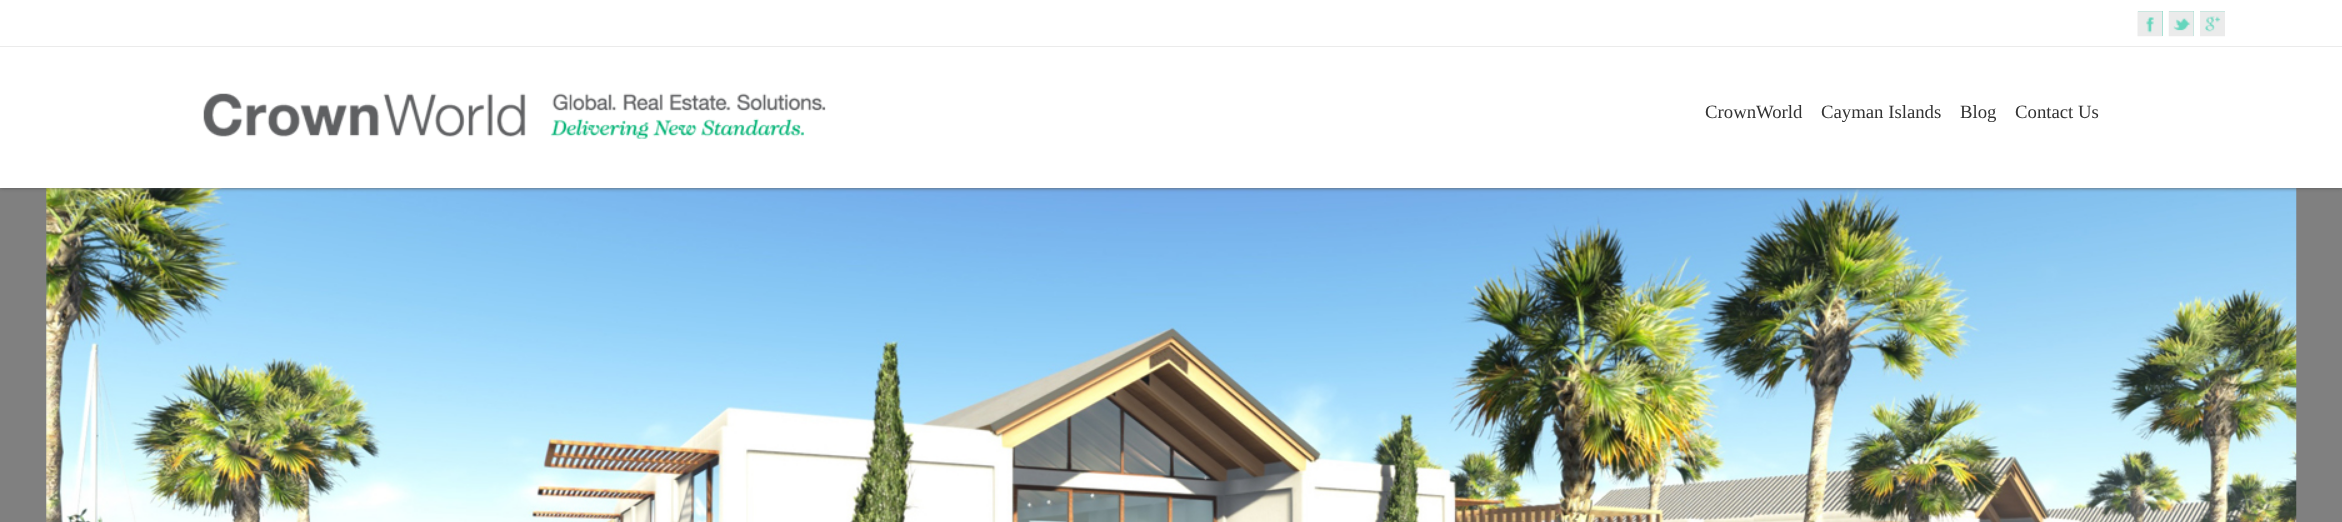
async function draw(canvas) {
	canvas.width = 2342;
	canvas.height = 522;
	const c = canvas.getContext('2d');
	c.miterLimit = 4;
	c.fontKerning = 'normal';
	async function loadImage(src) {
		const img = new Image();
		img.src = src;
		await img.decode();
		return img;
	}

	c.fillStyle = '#808080';
	c.fillRect(0, 0, 2342, 522);
	c.drawImage(await loadImage('img5.png'), 46, 188, 2251, 334);
	c.fillStyle = '#555';
	c.filter = 'blur(2px)';
	c.beginPath();
	c.rect(0, 0, 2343, 188);
	c.fill();
	c.filter = 'none';
	for (const [x, y, w, h, color] of [
		[0, 0, 2342, 188, '#fff'],
		[0, 46, 2342, 1, '#ebebeb'],
		[2138, 11, 25, 25, '#65d6bd'],
	]) {
		c.fillStyle = color;
		c.fillRect(x, y, w, h);
	}
	c.drawImage(await loadImage('img1.png'), 2137, 11, 26, 26);
	c.fillRect(2169, 11, 25, 25);
	c.drawImage(await loadImage('img2.png'), 2168, 11, 26, 26);
	c.fillRect(2200, 11, 25, 21);
	c.drawImage(await loadImage('img3.png'), 2200, 11, 25, 26);
	c.drawImage(await loadImage('img4.png'), 203, 93, 623, 46);
	c.font = '18.75px Liberation Serif';
	c.fillStyle = '#333';
	for (const [text, x, y] of [
		['CrownWorld', 1705, 118],
		['Cayman Islands', 1821, 118],
		['Blog', 1960, 118],
		['Contact Us', 2015, 118],
	]) {
		c.fillText(text, x, y);
	}
}

draw(document.querySelector('canvas'));
